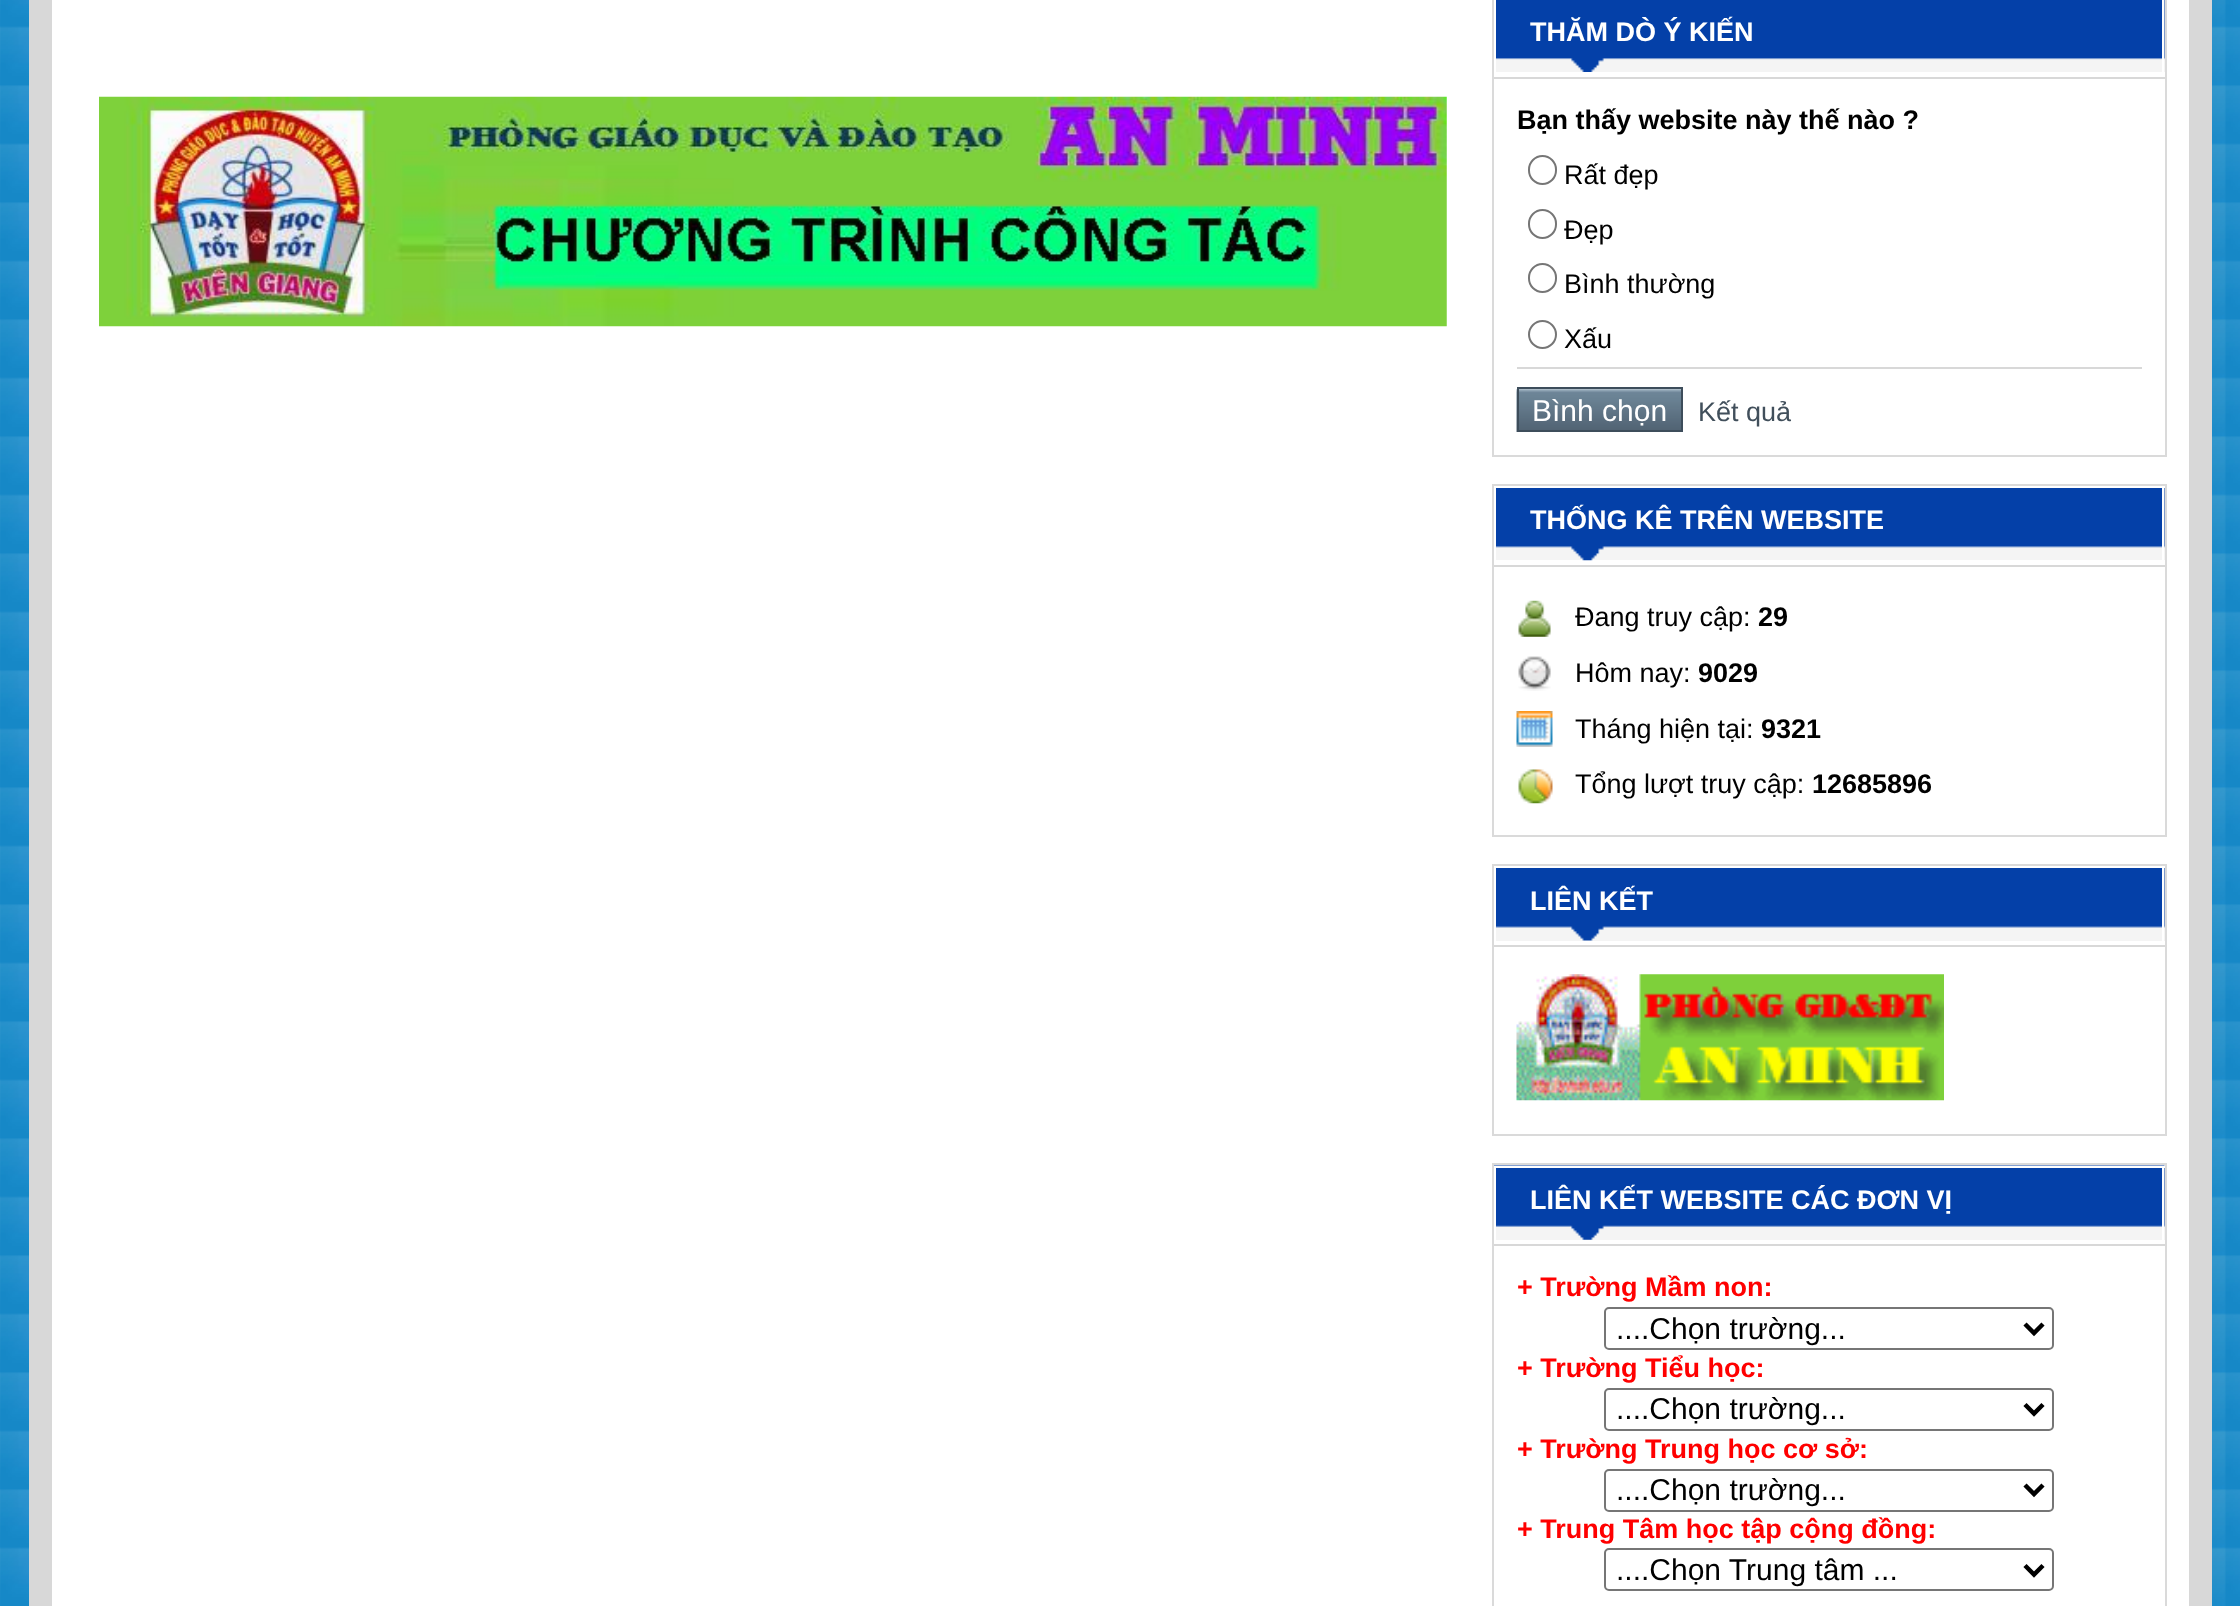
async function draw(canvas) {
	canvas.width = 2240;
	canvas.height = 1606;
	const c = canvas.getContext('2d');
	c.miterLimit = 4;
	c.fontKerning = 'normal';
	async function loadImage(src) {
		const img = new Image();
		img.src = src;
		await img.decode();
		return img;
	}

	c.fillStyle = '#fff';
	c.fillRect(0, 0, 2240, 1606);
	c.drawImage(await loadImage('img1.png'), 0, 0, 2240, 1606);
	c.beginPath();
	c.rect(40.5, -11.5, 2160, 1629);
	c.fill();
	c.strokeStyle = '#d8d8d8';
	c.lineWidth = 23;
	c.stroke();
	c.drawImage(await loadImage('img2.png'), 99, 96, 1348, 231);
	c.strokeStyle = '#dadada';
	c.lineWidth = 2;
	c.strokeRect(1493, -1, 673, 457);
	c.fillStyle = '#d8d8d8';
	c.fillRect(1494, 77, 671, 2);
	c.fillStyle = '#f4f4f4';
	c.fillRect(1496, 0, 669, 72);
	c.drawImage(await loadImage('img3.png'), 1496, 0, 669, 72);
	c.fillStyle = '#fff';
	c.fillRect(2162, 0, 2, 72);
	c.font = 'bold 27px Liberation Sans';
	c.fillText('THĂM DÒ Ý KIẾN', 1530, 41);
	c.fillStyle = '#000';
	c.fillText('Bạn thấy website này thế nào ?', 1517, 129);
	c.beginPath();
	c.roundRect(1529, 156, 27, 28, 13.5);
	c.strokeStyle = '#767676';
	c.stroke();
	c.font = '27px Liberation Sans';
	c.fillText('Rất đẹp', 1564, 184);
	c.beginPath();
	c.roundRect(1529, 210, 27, 28, 13.5);
	c.stroke();
	c.fillText('Đẹp', 1564, 239);
	c.beginPath();
	c.roundRect(1529, 264, 27, 28, 13.5);
	c.stroke();
	c.fillText('Bình thường', 1564, 293);
	c.beginPath();
	c.arc(1542.5, 334.5, 13.5, 0, 2 * Math.PI);
	c.stroke();
	c.fillText('Xấu', 1564, 348);
	c.fillStyle = '#d8d8d8';
	c.fillRect(1517, 367, 625, 2);
	c.drawImage(await loadImage('img4.png'), 1516, 389, 165, 43);
	c.strokeStyle = '#3d4d5b';
	c.strokeRect(1518, 388, 164, 43);
	c.font = '30px Liberation Sans';
	c.fillStyle = '#fff';
	c.fillText('Bình chọn', 1532, 421);
	c.font = '27px Liberation Sans';
	c.fillStyle = '#414f5b';
	c.fillText('Kết quả', 1698, 421);
	c.strokeStyle = '#dadada';
	c.strokeRect(1493, 485, 673, 351);
	c.fillStyle = '#d8d8d8';
	c.fillRect(1494, 565, 671, 2);
	c.fillStyle = '#f4f4f4';
	c.fillRect(1496, 488, 669, 72);
	c.drawImage(await loadImage('img5.png'), 1496, 488, 669, 73);
	c.fillStyle = '#fff';
	c.fillRect(2162, 486, 2, 74);
	c.font = 'bold 27px Liberation Sans';
	c.fillText('THỐNG KÊ TRÊN WEBSITE', 1530, 529);
	c.drawImage(await loadImage('img6.png'), 1518, 600, 33, 37);
	c.font = '27px Liberation Sans';
	c.fillStyle = '#000';
	c.fillText('Đang truy cập:', 1575, 626);
	c.font = 'bold 27px Liberation Sans';
	c.fillText('29', 1758, 626);
	c.drawImage(await loadImage('img7.png'), 1518, 656, 33, 35);
	c.font = '27px Liberation Sans';
	c.fillText('Hôm nay:', 1575, 682);
	c.font = 'bold 27px Liberation Sans';
	c.fillText('9029', 1698, 682);
	c.drawImage(await loadImage('img8.png'), 1516, 711, 37, 36);
	c.font = '27px Liberation Sans';
	c.fillText('Tháng hiện tại:', 1575, 738);
	c.font = 'bold 27px Liberation Sans';
	c.fillText('9321', 1761, 738);
	c.drawImage(await loadImage('img9.png'), 1518, 769, 35, 35);
	c.font = '27px Liberation Sans';
	c.fillText('Tổng lượt truy cập:', 1575, 793);
	c.font = 'bold 27px Liberation Sans';
	c.fillText('12685896', 1812, 793);
	c.strokeRect(1493, 865, 673, 270);
	c.fillStyle = '#d8d8d8';
	c.fillRect(1494, 945, 671, 2);
	c.fillStyle = '#f4f4f4';
	c.fillRect(1496, 868, 669, 73);
	c.drawImage(await loadImage('img10.png'), 1496, 868, 669, 73);
	c.fillStyle = '#fff';
	c.fillRect(2162, 866, 2, 75);
	c.fillText('LIÊN KẾT', 1530, 910);
	c.drawImage(await loadImage('img11.png'), 1516, 974, 428, 127);
	c.strokeRect(1493, 1164, 673, 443);
	c.fillStyle = '#d8d8d8';
	c.fillRect(1494, 1244, 671, 2);
	c.fillStyle = '#f4f4f4';
	c.fillRect(1496, 1168, 669, 72);
	c.drawImage(await loadImage('img12.png'), 1494, 1165, 671, 75);
	for (const [x, y, w, h, color] of [
		[1494, 1166, 671, 2, '#fff'],
		[2162, 1166, 2, 74, '#fff'],
		[1494, 1166, 2, 61, '#fff'],
	]) {
		c.fillStyle = color;
		c.fillRect(x, y, w, h);
	}
	c.fillText('LIÊN KẾT WEBSITE CÁC ĐƠN VỊ', 1530, 1209);
	c.fillStyle = '#f00';
	c.fillText('+ Trường Mầm non:', 1517, 1296);
	c.beginPath();
	c.roundRect(1605, 1308, 448, 41, 4);
	c.strokeStyle = '#767676';
	c.stroke();
	c.beginPath();
	c.moveTo(2025, 1324);
	c.lineTo(2034, 1333);
	c.lineTo(2043, 1324);
	c.strokeStyle = '#000';
	c.lineWidth = 4.5;
	c.stroke();
	c.font = '30px Liberation Sans';
	c.fillStyle = '#000';
	c.fillText('....Chọn trường...', 1616, 1339);
	c.font = 'bold 27px Liberation Sans';
	c.fillStyle = '#f00';
	c.fillText('+ Trường Tiểu học:', 1517, 1377);
	c.beginPath();
	c.roundRect(1605, 1389, 448, 41, 4);
	c.strokeStyle = '#767676';
	c.lineWidth = 2;
	c.stroke();
	c.beginPath();
	c.moveTo(2025, 1404.5);
	c.lineTo(2034, 1413.5);
	c.lineTo(2043, 1404.5);
	c.strokeStyle = '#000';
	c.lineWidth = 4.5;
	c.stroke();
	c.font = '30px Liberation Sans';
	c.fillStyle = '#000';
	c.fillText('....Chọn trường...', 1616, 1419);
	c.font = 'bold 27px Liberation Sans';
	c.fillStyle = '#f00';
	c.fillText('+ Trường Trung học cơ sở:', 1517, 1458);
	c.beginPath();
	c.roundRect(1605, 1470, 448, 41, 4);
	c.strokeStyle = '#767676';
	c.lineWidth = 2;
	c.stroke();
	c.beginPath();
	c.moveTo(2025, 1485);
	c.lineTo(2034, 1494);
	c.lineTo(2043, 1485);
	c.strokeStyle = '#000';
	c.lineWidth = 4.5;
	c.stroke();
	c.font = '30px Liberation Sans';
	c.fillStyle = '#000';
	c.fillText('....Chọn trường...', 1616, 1500);
	c.font = 'bold 27px Liberation Sans';
	c.fillStyle = '#f00';
	c.fillText('+ Trung Tâm học tập cộng đồng:', 1517, 1538);
	c.beginPath();
	c.roundRect(1605, 1549, 448, 41, 4);
	c.strokeStyle = '#767676';
	c.lineWidth = 2;
	c.stroke();
	c.beginPath();
	c.moveTo(2025, 1565.5);
	c.lineTo(2034, 1574.5);
	c.lineTo(2043, 1565.5);
	c.strokeStyle = '#000';
	c.lineWidth = 4.5;
	c.stroke();
	c.font = '30px Liberation Sans';
	c.fillStyle = '#000';
	c.fillText('....Chọn Trung tâm ...', 1616, 1580);
}

draw(document.querySelector('canvas'));
